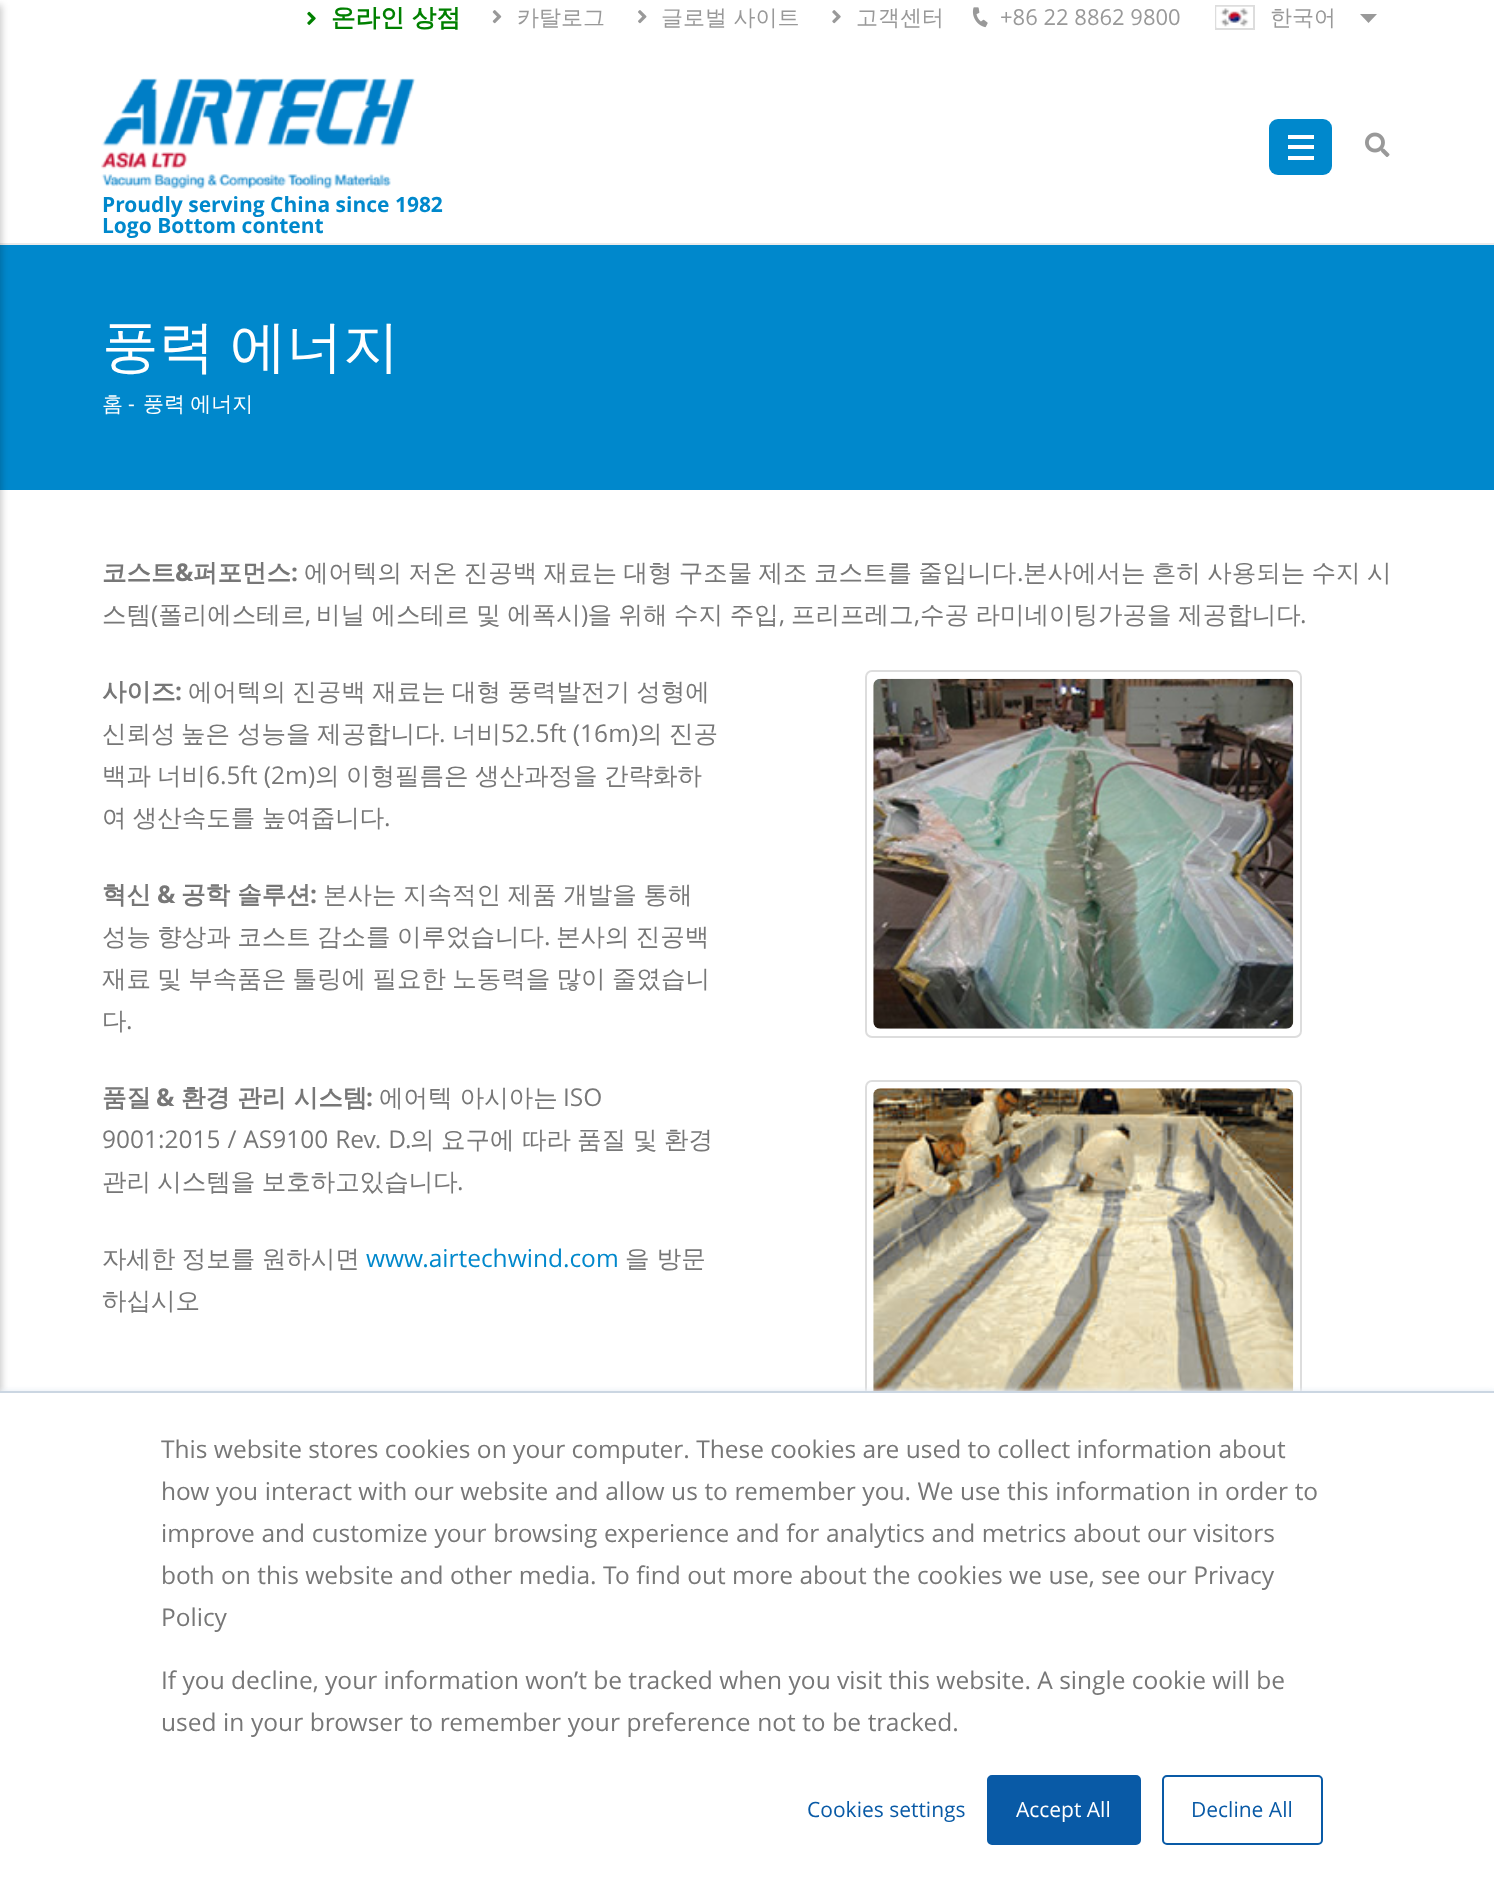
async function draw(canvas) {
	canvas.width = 1494;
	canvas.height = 1889;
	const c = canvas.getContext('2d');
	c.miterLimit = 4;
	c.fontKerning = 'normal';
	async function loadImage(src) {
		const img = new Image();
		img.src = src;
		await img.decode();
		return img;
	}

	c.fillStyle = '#fff';
	c.fillRect(0, 0, 1494, 1889);
	c.fillStyle = '#ebebeb';
	c.fillRect(0, 243, 1494, 2);
	c.drawImage(await loadImage('img1.png'), 307, 11, 9, 14);
	c.font = 'bold 24.5px WenQuanYi Zen Hei';
	c.fillStyle = '#008000';
	c.fillText('온라인 상점', 331, 26);
	c.drawImage(await loadImage('img2.png'), 492, 10, 10, 14);
	c.font = '500 22px WenQuanYi Zen Hei';
	c.fillStyle = '#999';
	c.fillText('카탈로그', 517, 25);
	c.drawImage(await loadImage('img3.png'), 638, 10, 9, 14);
	c.fillText('글로벌 사이트', 661, 25);
	c.drawImage(await loadImage('img4.png'), 832, 10, 9, 14);
	c.fillText('고객센터', 856, 25);
	c.drawImage(await loadImage('img5.png'), 972, 7, 16, 21);
	c.font = '22px Open Sans';
	c.fillText('+86 22 8862 9800', 1000, 25);
	c.strokeStyle = '#ddd';
	c.lineWidth = 2;
	c.strokeRect(1216, 6, 38, 23);
	c.drawImage(await loadImage('img6.png'), 1216, 6, 37, 22);
	c.font = '500 22px WenQuanYi Zen Hei';
	c.fillText('한국어', 1270, 25);
	c.beginPath();
	c.moveTo(1360, 14);
	c.lineTo(1377, 14);
	c.lineTo(1368.5, 23);
	c.closePath();
	c.fill();
	c.fillStyle = '#08c';
	c.fillRect(0, 245, 1494, 245);
	c.fillStyle = '#00000033';
	c.filter = 'blur(3.5px)';
	c.beginPath();
	c.rect(-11, 5, 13, 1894);
	c.fill();
	c.filter = 'none';
	c.fillStyle = '#08c';
	c.beginPath();
	c.roundRect(1269, 119, 63, 56, 9);
	c.fill();
	for (const [x, y, w, h, color] of [
		[1288, 135, 26, 4, '#fff'],
		[1288, 145, 26, 4, '#fff'],
		[1288, 156, 26, 4, '#fff'],
	]) {
		c.fillStyle = color;
		c.fillRect(x, y, w, h);
	}
	c.drawImage(await loadImage('img7.png'), 1365, 132, 25, 25);
	c.drawImage(await loadImage('img8.png'), 101, 78, 315, 111);
	c.font = 'bold 21px Open Sans';
	c.fillStyle = '#08c';
	c.fillText('Proudly serving China since 1982', 102, 212);
	c.fillText('Logo Bottom content', 102, 233);
	c.wordSpacing = '-2px';
	c.font = '500 56.5px WenQuanYi Zen Hei';
	c.fillStyle = '#fff';
	c.fillText('풍력 에너지', 102, 366);
	c.wordSpacing = '0px';
	c.font = '500 21px WenQuanYi Zen Hei';
	c.fillText('홈', 102, 411);
	c.font = '21px Open Sans';
	c.fillText('-', 128, 411);
	c.wordSpacing = '-1px';
	c.font = '500 21px WenQuanYi Zen Hei';
	c.fillText('풍력 에너지', 143, 411);
	c.wordSpacing = '0px';
	c.font = 'bold 24.5px WenQuanYi Zen Hei';
	c.fillStyle = '#777';
	c.fillText('코스트', 102, 581);
	c.font = 'bold 24.5px Open Sans';
	c.fillText('&', 175, 581);
	c.font = 'bold 24.5px WenQuanYi Zen Hei';
	c.fillText('퍼포먼스', 193, 581);
	c.font = 'bold 24.5px Open Sans';
	c.fillText(':', 291, 581);
	c.wordSpacing = '-1px';
	c.font = '500 24.5px WenQuanYi Zen Hei';
	c.fillText('에어텍의 저온 진공백 재료는 대형 구조물 제조 코스트를 줄입니다', 304, 581);
	c.wordSpacing = '0px';
	c.font = '24.5px Open Sans';
	c.fillText('.', 1017, 581);
	c.wordSpacing = '-1px';
	c.font = '500 24.5px WenQuanYi Zen Hei';
	c.fillText('본사에서는 흔히 사용되는 수지 시', 1023, 581);
	c.wordSpacing = '0px';
	c.fillText('스템 폴리에스테르', 102, 623);
	c.wordSpacing = '-0.75px';
	c.fillText('비닐 에스테르 및 에폭시 을 위해 수지 주입', 316, 623);
	c.wordSpacing = '0px';
	c.fillText('프리프레그', 791, 623);
	c.wordSpacing = '-0.75px';
	c.fillText('수공 라미네이팅가공을 제공합니다', 920, 623);
	c.wordSpacing = '0px';
	c.font = '24.5px Open Sans';
	for (const [text, x, y] of [
		['(', 151, 623],
		[',', 305, 623],
		[')', 581, 623],
		[',', 779, 623],
		[',', 914, 623],
		['.', 1300, 623],
	]) {
		c.fillText(text, x, y);
	}
	c.font = 'bold 24.5px WenQuanYi Zen Hei';
	c.fillText('사이즈', 102, 700);
	c.font = 'bold 24.5px Open Sans';
	c.fillText(':', 175, 700);
	c.wordSpacing = '-1px';
	c.font = '500 24.5px WenQuanYi Zen Hei';
	c.fillText('에어텍의 진공백 재료는 대형 풍력발전기 성형에', 188, 700);
	c.wordSpacing = '0px';
	for (const [text, x, y] of [
		['신뢰성', 102, 742],
		['높은', 181, 742],
		['성능을', 237, 742],
		['제공합니다', 317, 742],
	]) {
		c.fillText(text, x, y);
	}
	c.font = '24.5px Open Sans';
	c.fillText('.', 439, 742);
	c.font = '500 24.5px WenQuanYi Zen Hei';
	c.fillText('너비', 452, 742);
	c.font = '24.5px Open Sans';
	c.fillText('52.5ft (16m)', 501, 742);
	c.font = '500 24.5px WenQuanYi Zen Hei';
	for (const [text, x, y] of [
		['의', 638, 742],
		['진공', 669, 742],
		['백과', 102, 784],
		['너비', 157, 784],
	]) {
		c.fillText(text, x, y);
	}
	c.font = '24.5px Open Sans';
	c.fillText('6.5ft (2m)', 206, 784);
	c.font = '500 24.5px WenQuanYi Zen Hei';
	for (const [text, x, y] of [
		['의', 315, 784],
		['이형필름은', 346, 784],
		['생산과정을', 475, 784],
		['간략화하', 604, 784],
	]) {
		c.fillText(text, x, y);
	}
	c.wordSpacing = '-1px';
	c.fillText('여 생산속도를 높여줍니다', 102, 826);
	c.wordSpacing = '0px';
	c.font = '24.5px Open Sans';
	c.fillText('.', 384, 826);
	c.font = 'bold 24.5px WenQuanYi Zen Hei';
	c.fillText('혁신', 102, 903);
	c.font = 'bold 24.5px Open Sans';
	c.fillText('&', 157, 903);
	c.font = 'bold 24.5px WenQuanYi Zen Hei';
	c.fillText('공학 솔루션', 181, 903);
	c.font = 'bold 24.5px Open Sans';
	c.fillText(':', 310, 903);
	c.wordSpacing = '-0.75px';
	c.font = '500 24.5px WenQuanYi Zen Hei';
	c.fillText('본사는 지속적인 제품 개발을 통해', 323, 903);
	c.wordSpacing = '-1px';
	c.fillText('성능 향상과 코스트 감소를 이루었습니다', 102, 945);
	c.wordSpacing = '0px';
	c.font = '24.5px Open Sans';
	c.fillText('.', 544, 945);
	c.wordSpacing = '-1px';
	c.font = '500 24.5px WenQuanYi Zen Hei';
	c.fillText('본사의 진공백', 556, 945);
	c.fillText('재료 및 부속품은 툴링에 필요한 노동력을 많이 줄였습니', 102, 987);
	c.wordSpacing = '0px';
	c.fillText('다', 102, 1029);
	c.font = '24.5px Open Sans';
	c.fillText('.', 126, 1029);
	c.font = 'bold 24.5px WenQuanYi Zen Hei';
	c.fillText('품질', 102, 1106);
	c.font = 'bold 24.5px Open Sans';
	c.fillText('&', 156, 1106);
	c.font = 'bold 24.5px WenQuanYi Zen Hei';
	c.fillText('환경 관리 시스템', 181, 1106);
	c.font = 'bold 24.5px Open Sans';
	c.fillText(':', 366, 1106);
	c.font = '500 24.5px WenQuanYi Zen Hei';
	c.fillText('에어텍 아시아는', 379, 1106);
	c.font = '24.5px Open Sans';
	c.fillText('ISO', 563, 1106);
	c.wordSpacing = '0.5px';
	c.fillText('9001:2015 / AS9100 Rev. D.', 102, 1148);
	c.wordSpacing = '0px';
	c.font = '500 24.5px WenQuanYi Zen Hei';
	for (const [text, x, y] of [
		['의', 410, 1148],
		['요구에', 441, 1148],
		['따라', 522, 1148],
		['품질', 577, 1148],
		['및', 633, 1148],
		['환경', 664, 1148],
	]) {
		c.fillText(text, x, y);
	}
	c.wordSpacing = '-1px';
	c.fillText('관리 시스템을 보호하고있습니다', 102, 1190);
	c.wordSpacing = '0px';
	c.font = '24.5px Open Sans';
	c.fillText('.', 457, 1190);
	c.wordSpacing = '-1px';
	c.font = '500 24.5px WenQuanYi Zen Hei';
	c.fillText('자세한 정보를 원하시면', 102, 1267);
	c.wordSpacing = '0px';
	c.font = '24.5px Open Sans';
	c.fillStyle = '#08c';
	c.fillText('www.airtechwind.com', 366, 1267);
	c.font = '500 24.5px WenQuanYi Zen Hei';
	c.fillStyle = '#777';
	c.fillText('을 방문', 625, 1267);
	c.fillText('하십시오', 102, 1309);
	c.beginPath();
	c.roundRect(866, 671, 435, 366, 6);
	c.stroke();
	c.drawImage(await loadImage('img9.png'), 873, 678, 421, 351);
	c.beginPath();
	c.roundRect(866, 1081, 435, 365, 6);
	c.stroke();
	c.drawImage(await loadImage('img10.png'), 873, 1088, 421, 303);
	c.fillStyle = '#eaf0f6';
	c.filter = 'blur(2.5px)';
	c.beginPath();
	c.rect(0, 1390, 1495, 498);
	c.fill();
	c.filter = 'none';
	c.fillStyle = '#fff';
	c.fillRect(0, 1393, 1494, 496);
	c.fillStyle = '#cbd6e2';
	c.fillRect(0, 1391, 1494, 2);
	c.font = '24.5px Open Sans';
	c.fillStyle = '#777';
	c.fillText('This website stores cookies on your computer. These cookies are used to collect information about', 161, 1458);
	c.wordSpacing = '0.2px';
	c.fillText('how you interact with our website and allow us to remember you. We use this information in order to', 161, 1500);
	c.wordSpacing = '0.25px';
	c.fillText('improve and customize your browsing experience and for analytics and metrics about our visitors', 161, 1542);
	c.wordSpacing = '0.1px';
	c.fillText('both on this website and other media. To find out more about the cookies we use, see our Privacy', 161, 1584);
	c.wordSpacing = '0px';
	c.fillText('Policy', 161, 1626);
	c.fillText('If you decline, your information won’t be tracked when you visit this website. A single cookie will be', 161, 1689);
	c.wordSpacing = '0.25px';
	c.fillText('used in your browser to remember your preference not to be tracked.', 161, 1731);
	c.wordSpacing = '0px';
	c.font = '21px Open Sans';
	c.fillStyle = '#095aa6';
	c.fillText('Cookies settings', 807, 1817);
	c.beginPath();
	c.roundRect(988, 1776, 152, 68, 4);
	c.fill();
	c.strokeStyle = '#095aa6';
	c.stroke();
	c.fillStyle = '#fff';
	c.fillText('Accept All', 1016, 1817);
	c.beginPath();
	c.roundRect(1163, 1776, 159, 68, 4);
	c.stroke();
	c.fillStyle = '#095aa6';
	c.fillText('Decline All', 1191, 1817);
}

draw(document.querySelector('canvas'));
